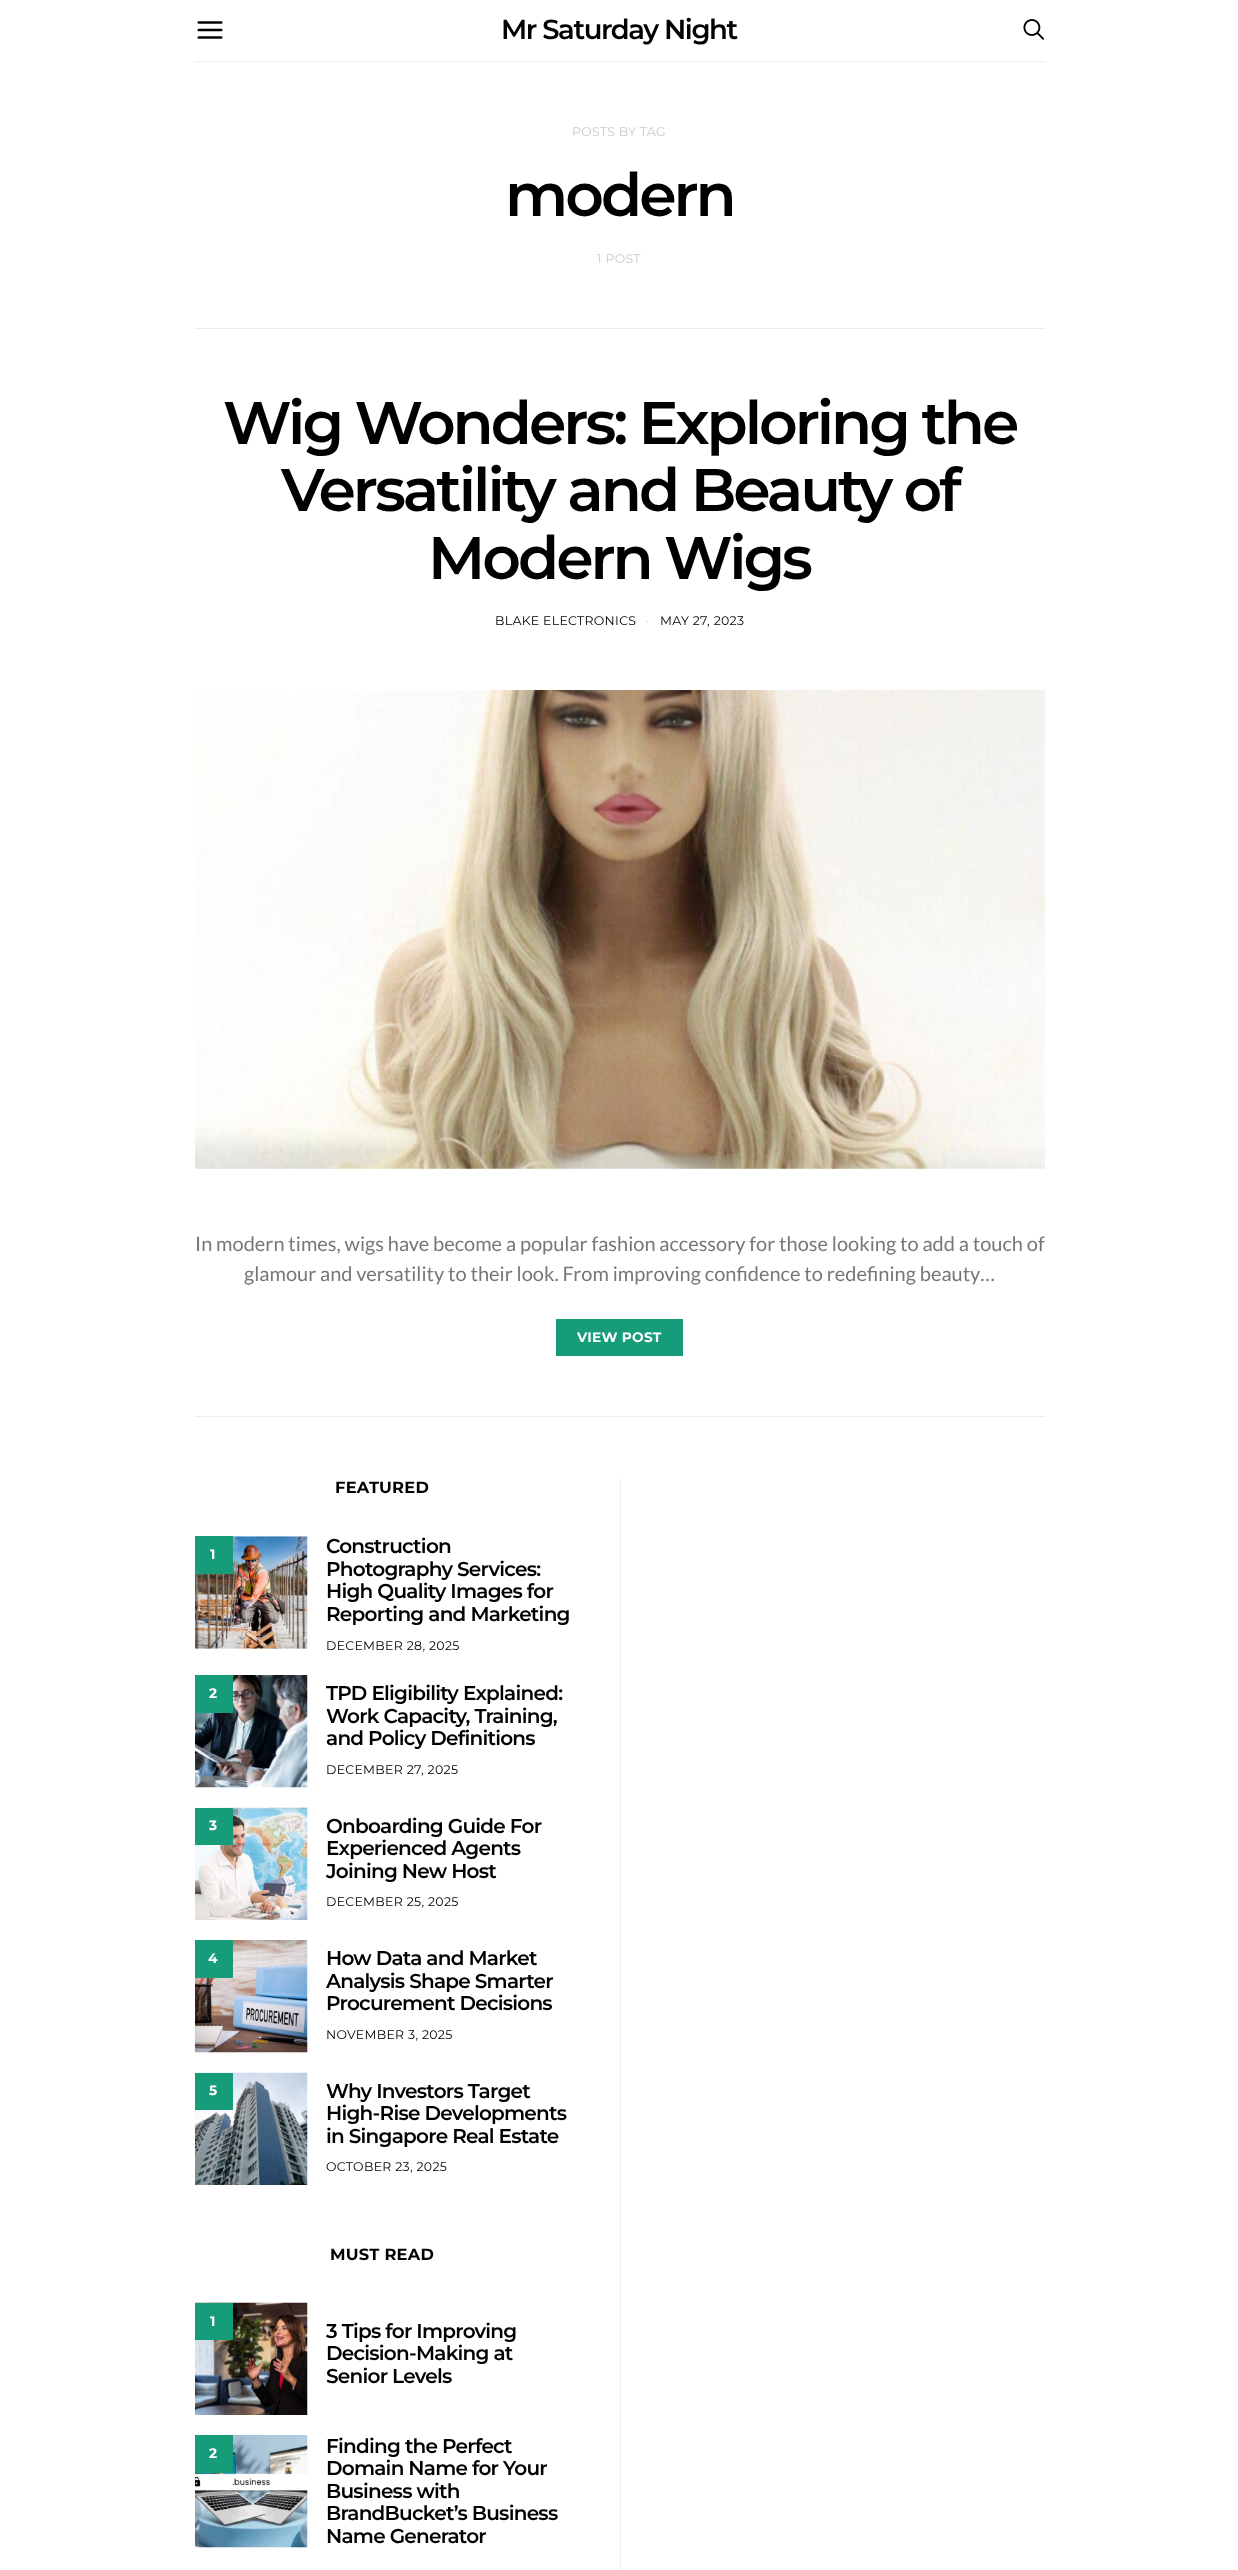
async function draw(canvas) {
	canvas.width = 1238;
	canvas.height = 2570;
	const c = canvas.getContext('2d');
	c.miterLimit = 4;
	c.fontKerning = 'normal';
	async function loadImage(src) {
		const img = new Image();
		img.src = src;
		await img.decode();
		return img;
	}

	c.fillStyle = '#fff';
	c.fillRect(0, 0, 1238, 2570);
	c.fillStyle = '#eee';
	c.fillRect(195, 61, 850, 1);
	c.drawImage(await loadImage('img1.png'), 197, 21, 26, 18);
	c.letterSpacing = '-1.4px';
	c.font = '600 27.5px Montserrat';
	c.fillStyle = '#000';
	c.fillText('Mr Saturday Night', 501, 39);
	c.drawImage(await loadImage('img2.png'), 1023, 19, 21, 21);
	c.fillStyle = '#eee';
	c.fillRect(195, 1416, 850, 1);
	c.letterSpacing = '0.3px';
	c.font = '12.5px Montserrat';
	c.fillStyle = '#c9c9c9';
	c.fillText('POSTS BY TAG', 572, 136);
	c.letterSpacing = '-3px';
	c.font = '600 60px Montserrat';
	c.fillStyle = '#000';
	c.fillText('modern', 505, 216);
	c.letterSpacing = '0.3px';
	c.font = '12.5px Montserrat';
	c.fillStyle = '#c9c9c9';
	c.fillText('1 POST', 597, 263);
	c.fillStyle = '#e9ecef';
	c.fillRect(195, 328, 850, 1);
	c.letterSpacing = '-3px';
	c.font = '600 60px Montserrat';
	c.fillStyle = '#000';
	for (const [text, x, y] of [
		['Wig Wonders: Exploring the', 223, 444],
		['Versatility and Beauty of', 281, 511],
		['Modern Wigs', 428, 579],
	]) {
		c.fillText(text, x, y);
	}
	c.letterSpacing = '0.3px';
	c.font = '12.5px Montserrat';
	c.fillText('BLAKE ELECTRONICS', 495, 625);
	c.fillStyle = '#c9c9c9';
	c.fillText('·', 646, 625);
	c.fillStyle = '#000';
	c.fillText('MAY 27, 2023', 660, 625);
	c.drawImage(await loadImage('img3.png'), 195, 690, 850, 479);
	c.letterSpacing = '0px';
	c.font = '20px Lato';
	c.fillStyle = '#777';
	c.fillText('In modern times, wigs have become a popular fashion accessory for those looking to add a touch of', 195, 1251);
	c.fillText('glamour and versatility to their look. From improving confidence to redefining beauty…', 244, 1281);
	c.fillStyle = '#169c78';
	c.fillRect(556, 1319, 127, 37);
	c.letterSpacing = '0.25px';
	c.font = 'bold 13.75px Montserrat';
	c.fillStyle = '#fff';
	c.fillText('VIEW POST', 577, 1342);
	c.font = 'bold 16.25px Montserrat';
	c.fillStyle = '#000';
	c.fillText('FEATURED', 335, 1493);
	c.drawImage(await loadImage('img4.png'), 195, 1536, 113, 113);
	c.fillStyle = '#169c78';
	c.fillRect(195, 1536, 38, 38);
	c.font = 'bold 13.75px Montserrat';
	c.fillStyle = '#fff';
	c.fillText('1', 210, 1559);
	c.letterSpacing = '-0.75px';
	c.font = '600 20px Montserrat';
	c.fillStyle = '#000';
	for (const [text, x, y] of [
		['Construction', 326, 1553],
		['Photography Services:', 326, 1576],
		['High Quality Images for', 326, 1598],
		['Reporting and Marketing', 326, 1621],
	]) {
		c.fillText(text, x, y);
	}
	c.letterSpacing = '0.3px';
	c.font = '12.5px Montserrat';
	c.fillText('DECEMBER 28, 2025', 326, 1650);
	c.drawImage(await loadImage('img5.png'), 195, 1675, 113, 113);
	c.fillStyle = '#169c78';
	c.fillRect(195, 1675, 38, 38);
	c.letterSpacing = '0.25px';
	c.font = 'bold 13.75px Montserrat';
	c.fillStyle = '#fff';
	c.fillText('2', 209, 1698);
	c.letterSpacing = '-0.75px';
	c.font = '600 20px Montserrat';
	c.fillStyle = '#000';
	for (const [text, x, y] of [
		['TPD Eligibility Explained:', 326, 1700],
		['Work Capacity, Training,', 326, 1723],
		['and Policy Definitions', 326, 1745],
	]) {
		c.fillText(text, x, y);
	}
	c.letterSpacing = '0.3px';
	c.font = '12.5px Montserrat';
	c.fillText('DECEMBER 27, 2025', 326, 1774);
	c.drawImage(await loadImage('img6.png'), 195, 1807, 113, 113);
	c.fillStyle = '#169c78';
	c.fillRect(195, 1808, 38, 37);
	c.letterSpacing = '0.25px';
	c.font = 'bold 13.75px Montserrat';
	c.fillStyle = '#fff';
	c.fillText('3', 209, 1830);
	c.letterSpacing = '-0.75px';
	c.font = '600 20px Montserrat';
	c.fillStyle = '#000';
	for (const [text, x, y] of [
		['Onboarding Guide For', 326, 1833],
		['Experienced Agents', 326, 1855],
		['Joining New Host', 326, 1878],
	]) {
		c.fillText(text, x, y);
	}
	c.letterSpacing = '0.3px';
	c.font = '12.5px Montserrat';
	c.fillText('DECEMBER 25, 2025', 326, 1906);
	c.drawImage(await loadImage('img7.png'), 195, 1940, 113, 113);
	c.fillStyle = '#169c78';
	c.fillRect(195, 1940, 38, 38);
	c.letterSpacing = '0.25px';
	c.font = 'bold 13.75px Montserrat';
	c.fillStyle = '#fff';
	c.fillText('4', 208, 1963);
	c.letterSpacing = '-0.75px';
	c.font = '600 20px Montserrat';
	c.fillStyle = '#000';
	for (const [text, x, y] of [
		['How Data and Market', 326, 1965],
		['Analysis Shape Smarter', 326, 1988],
		['Procurement Decisions', 326, 2010],
	]) {
		c.fillText(text, x, y);
	}
	c.letterSpacing = '0.3px';
	c.font = '12.5px Montserrat';
	c.fillText('NOVEMBER 3, 2025', 326, 2039);
	c.drawImage(await loadImage('img8.png'), 195, 2072, 113, 113);
	c.fillStyle = '#169c78';
	c.fillRect(195, 2073, 38, 37);
	c.letterSpacing = '0.25px';
	c.font = 'bold 13.75px Montserrat';
	c.fillStyle = '#fff';
	c.fillText('5', 209, 2095);
	c.letterSpacing = '-0.75px';
	c.font = '600 20px Montserrat';
	c.fillStyle = '#000';
	for (const [text, x, y] of [
		['Why Investors Target', 326, 2098],
		['High-Rise Developments', 326, 2120],
		['in Singapore Real Estate', 326, 2143],
	]) {
		c.fillText(text, x, y);
	}
	c.letterSpacing = '0.3px';
	c.font = '12.5px Montserrat';
	c.fillText('OCTOBER 23, 2025', 326, 2171);
	c.letterSpacing = '0.25px';
	c.font = 'bold 16.25px Montserrat';
	c.fillText('MUST READ', 330, 2260);
	c.drawImage(await loadImage('img9.png'), 195, 2302, 113, 113);
	c.fillStyle = '#169c78';
	c.fillRect(195, 2303, 38, 37);
	c.font = 'bold 13.75px Montserrat';
	c.fillStyle = '#fff';
	c.fillText('1', 210, 2326);
	c.letterSpacing = '-0.75px';
	c.font = '600 20px Montserrat';
	c.fillStyle = '#000';
	for (const [text, x, y] of [
		['3 Tips for Improving', 326, 2338],
		['Decision-Making at', 326, 2360],
		['Senior Levels', 326, 2383],
	]) {
		c.fillText(text, x, y);
	}
	c.drawImage(await loadImage('img10.png'), 195, 2435, 113, 113);
	c.fillStyle = '#169c78';
	c.fillRect(195, 2435, 38, 38);
	c.letterSpacing = '0.25px';
	c.font = 'bold 13.75px Montserrat';
	c.fillStyle = '#fff';
	c.fillText('2', 209, 2458);
	c.letterSpacing = '-0.75px';
	c.font = '600 20px Montserrat';
	c.fillStyle = '#000';
	for (const [text, x, y] of [
		['Finding the Perfect', 326, 2453],
		['Domain Name for Your', 326, 2475],
		['Business with', 326, 2498],
		['BrandBucket’s Business', 326, 2520],
		['Name Generator', 326, 2543],
	]) {
		c.fillText(text, x, y);
	}
	c.fillStyle = '#eee';
	c.fillRect(620, 1478, 1, 1092);
}

draw(document.querySelector('canvas'));
